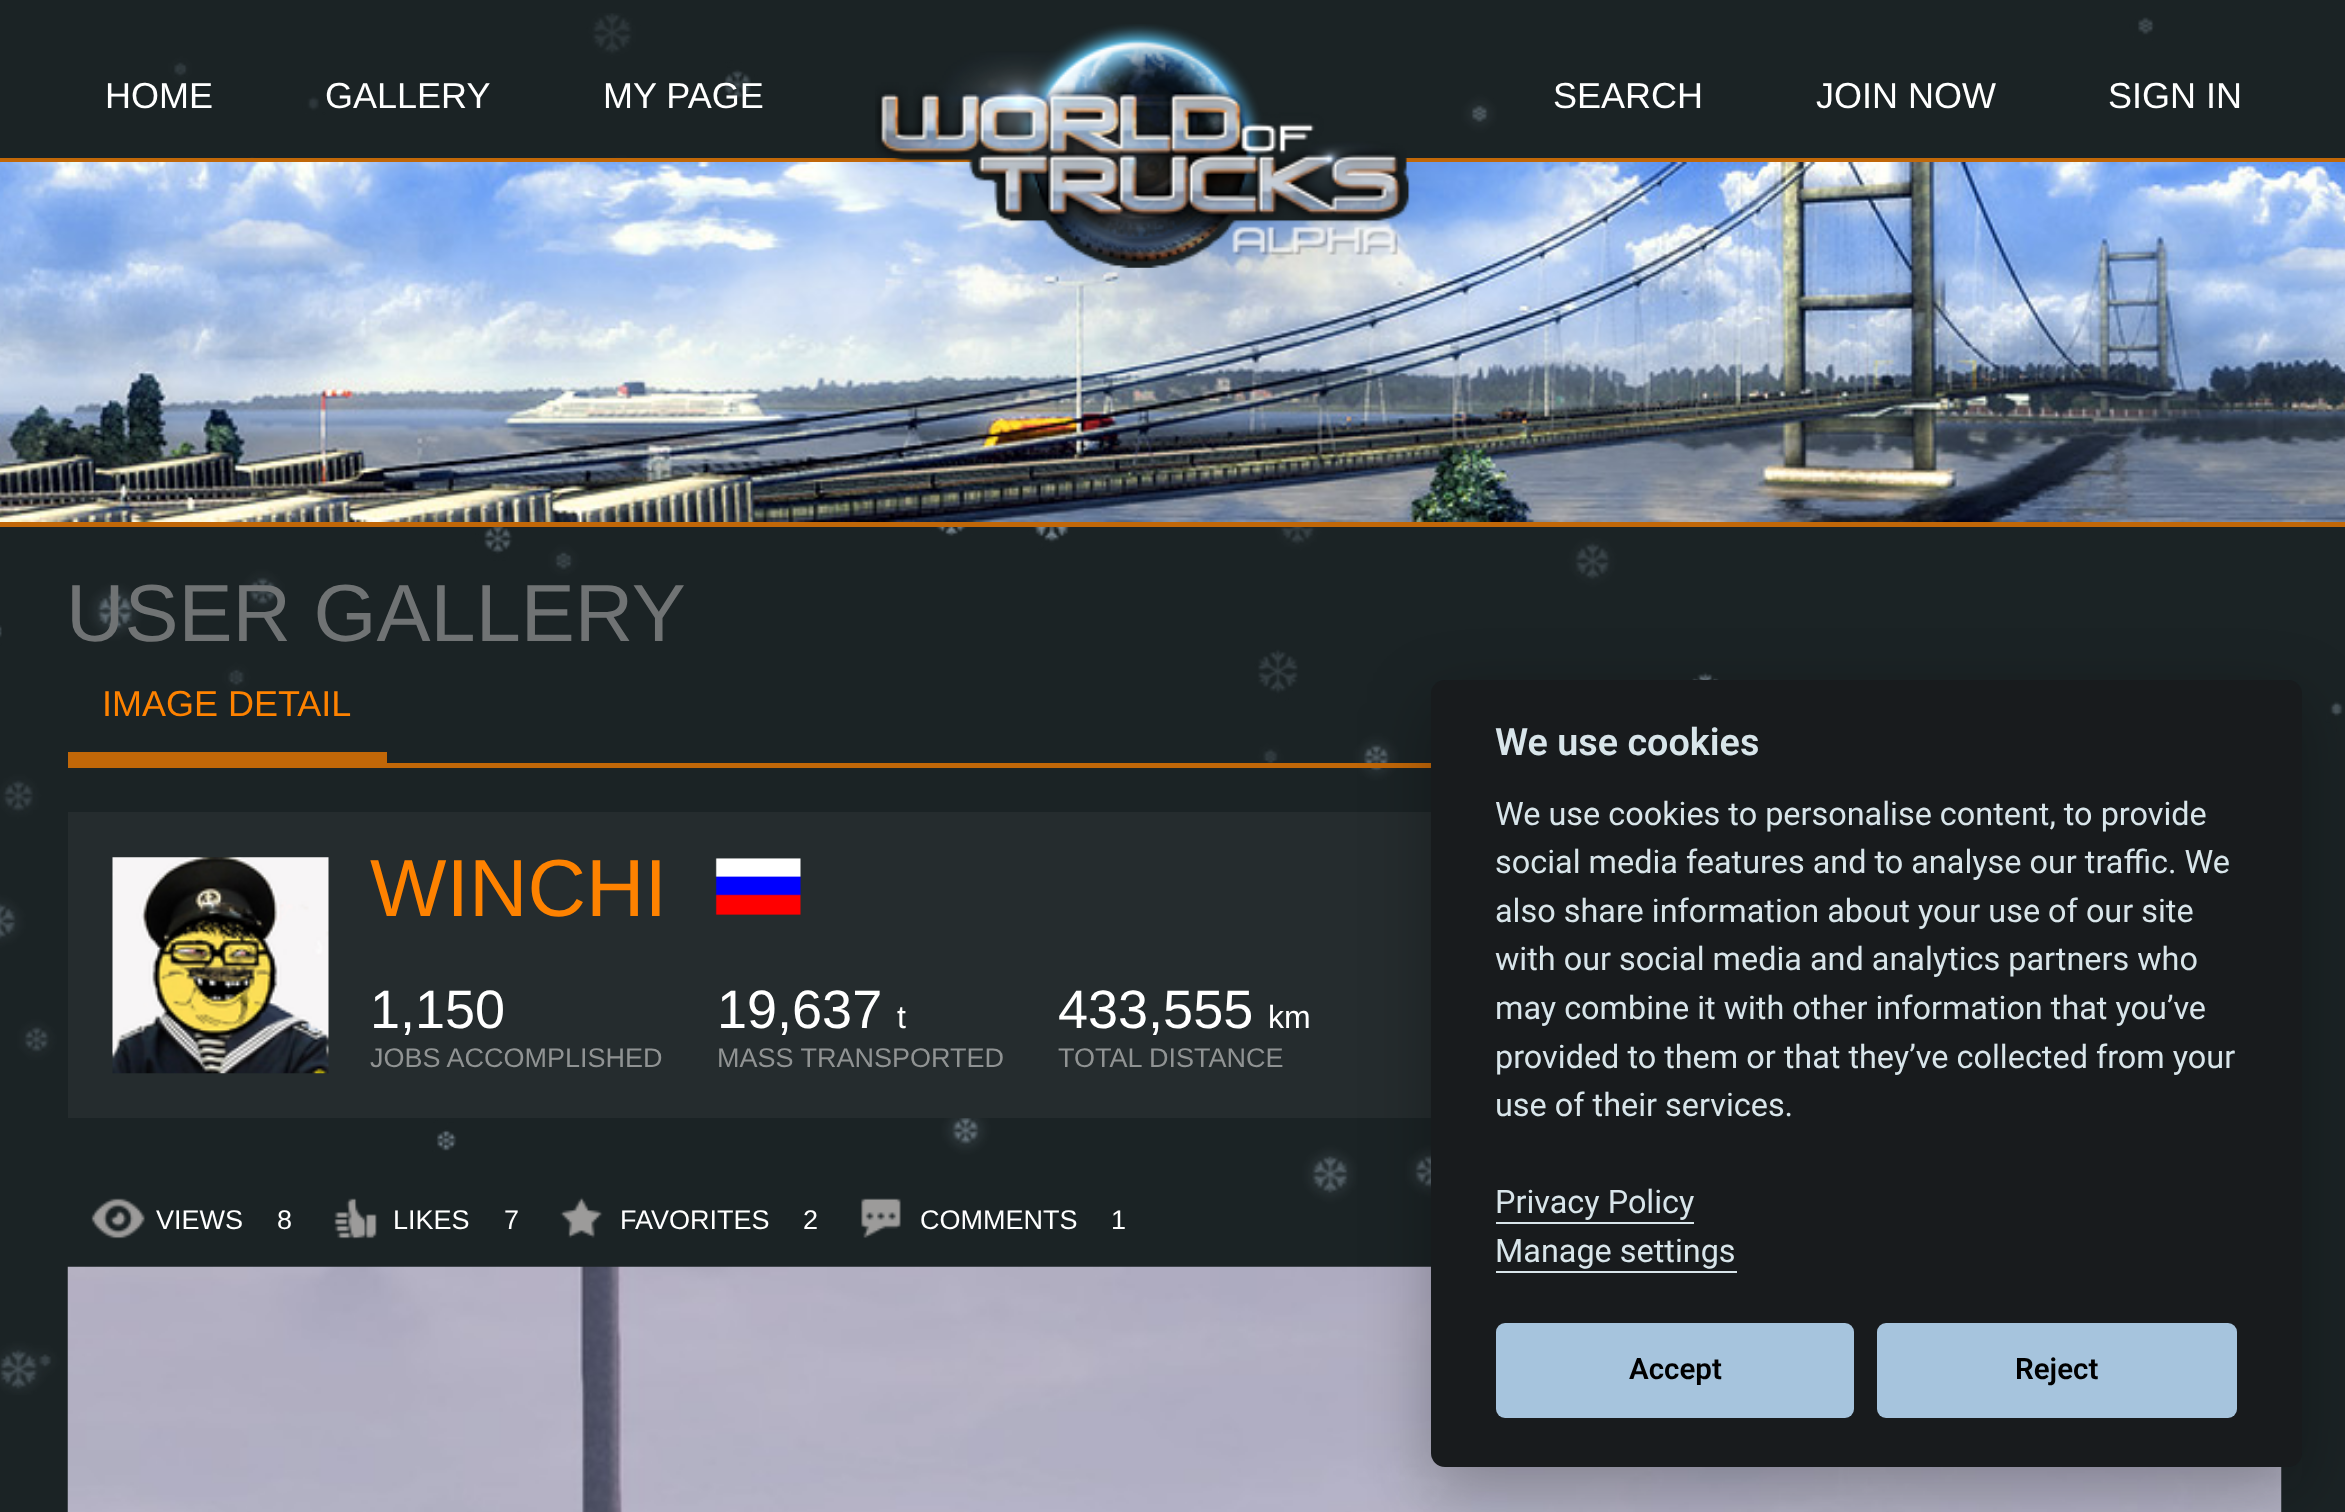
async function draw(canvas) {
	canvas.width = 2345;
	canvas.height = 1512;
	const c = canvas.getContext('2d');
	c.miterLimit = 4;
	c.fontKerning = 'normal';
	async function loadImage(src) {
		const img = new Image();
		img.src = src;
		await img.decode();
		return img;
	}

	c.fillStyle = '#1b2325';
	c.fillRect(0, 0, 2345, 1512);
	c.drawImage(await loadImage('img1.png'), 0, 13, 2344, 1382);
	c.fillStyle = '#c16708';
	c.fillRect(0, 158, 2345, 4);
	c.font = '36px Liberation Sans';
	c.fillStyle = '#fff';
	for (const [text, x, y] of [
		['HOME', 105, 108],
		['GALLERY', 325, 108],
		['MY PAGE', 603, 108],
	]) {
		c.fillText(text, x, y);
	}
	c.drawImage(await loadImage('img3.png'), 0, 162, 2345, 360);
	c.drawImage(await loadImage('img2.png'), 875, 24, 535, 244);
	for (const [text, x, y] of [
		['SEARCH', 1553, 108],
		['JOIN NOW', 1816, 108],
		['SIGN IN', 2108, 108],
	]) {
		c.fillText(text, x, y);
	}
	c.fillStyle = '#c16708';
	c.fillRect(0, 522, 2345, 5);
	c.font = '81px Liberation Sans';
	c.fillStyle = '#707374';
	c.fillText('USER GALLERY', 66, 641);
	c.fillStyle = '#c16708';
	c.fillRect(68, 763, 1363, 5);
	c.fillRect(68, 752, 319, 11);
	c.font = '36px Liberation Sans';
	c.fillStyle = '#fe8200';
	c.fillText('IMAGE DETAIL', 102, 716);
	c.fillStyle = '#252c2e';
	c.fillRect(68, 812, 1363, 306);
	c.drawImage(await loadImage('img4.png'), 112, 857, 217, 217);
	c.font = '81px Liberation Sans';
	c.fillStyle = '#fe8200';
	c.fillText('WINCHI', 370, 916);
	c.drawImage(await loadImage('img5.png'), 715, 858, 86, 57);
	c.font = '54px Liberation Sans';
	c.fillStyle = '#fff';
	c.fillText('1,150', 370, 1028);
	c.font = '27px Liberation Sans';
	c.fillStyle = '#909393';
	c.fillText('JOBS ACCOMPLISHED', 370, 1067);
	c.font = '54px Liberation Sans';
	c.fillStyle = '#fff';
	c.fillText('19,637', 717, 1028);
	c.font = '32px Liberation Sans';
	c.fillText('t', 897, 1028);
	c.font = '27px Liberation Sans';
	c.fillStyle = '#909393';
	c.fillText('MASS TRANSPORTED', 717, 1067);
	c.font = '54px Liberation Sans';
	c.fillStyle = '#fff';
	c.fillText('433,555', 1058, 1028);
	c.font = '32px Liberation Sans';
	c.fillText('km', 1268, 1028);
	c.font = '27px Liberation Sans';
	c.fillStyle = '#909393';
	c.fillText('TOTAL DISTANCE', 1058, 1067);
	c.drawImage(await loadImage('img6.png'), 91, 1198, 54, 41);
	c.fillStyle = '#fff';
	c.fillText('VIEWS', 156, 1229);
	c.fillText('8', 277, 1229);
	c.drawImage(await loadImage('img7.png'), 334, 1198, 43, 41);
	c.fillText('LIKES', 393, 1229);
	c.fillText('7', 504, 1229);
	c.drawImage(await loadImage('img8.png'), 560, 1197, 43, 41);
	c.fillText('FAVORITES', 620, 1229);
	c.fillText('2', 803, 1229);
	c.drawImage(await loadImage('img9.png'), 861, 1198, 40, 40);
	c.fillText('COMMENTS', 920, 1229);
	c.fillText('1', 1111, 1229);
	c.drawImage(await loadImage('img10.png'), 67, 1266, 2215, 246);
	c.fillStyle = '#02020347';
	c.filter = 'blur(34px)';
	c.beginPath();
	c.roundRect(1431, 702, 871, 788, 14);
	c.fill();
	c.filter = 'none';
	c.fillStyle = '#181b1d';
	c.beginPath();
	c.roundRect(1431, 680, 871, 787, 14);
	c.fill();
	c.font = '600 37.75px Roboto';
	c.fillStyle = '#d8e5ea';
	c.fillText('We use cookies', 1495, 755);
	c.font = '32.4px Roboto';
	for (const [text, x, y] of [
		['We use cookies to personalise content, to provide', 1495, 825],
		['social media features and to analyse our traffic. We', 1495, 873],
		['also share information about your use of our site', 1495, 922],
		['with our social media and analytics partners who', 1495, 970],
		['may combine it with other information that you’ve', 1495, 1019],
		['provided to them or that they’ve collected from your', 1495, 1068],
		['use of their services.', 1495, 1116],
		['Privacy Policy', 1495, 1213],
	]) {
		c.fillText(text, x, y);
	}
	c.fillRect(1496, 1222, 198, 2);
	c.fillText('Manage settings', 1495, 1262);
	c.fillRect(1496, 1271, 241, 2);
	c.fillStyle = '#a6c4dd';
	c.beginPath();
	c.roundRect(1496, 1323, 358, 95, 9);
	c.fill();
	c.font = '600 29.5px Roboto';
	c.fillStyle = '#000';
	c.fillText('Accept', 1629, 1379);
	c.fillStyle = '#a6c4dd';
	c.beginPath();
	c.roundRect(1877, 1323, 360, 95, 9);
	c.fill();
	c.fillStyle = '#000';
	c.fillText('Reject', 2015, 1379);
}

draw(document.querySelector('canvas'));
